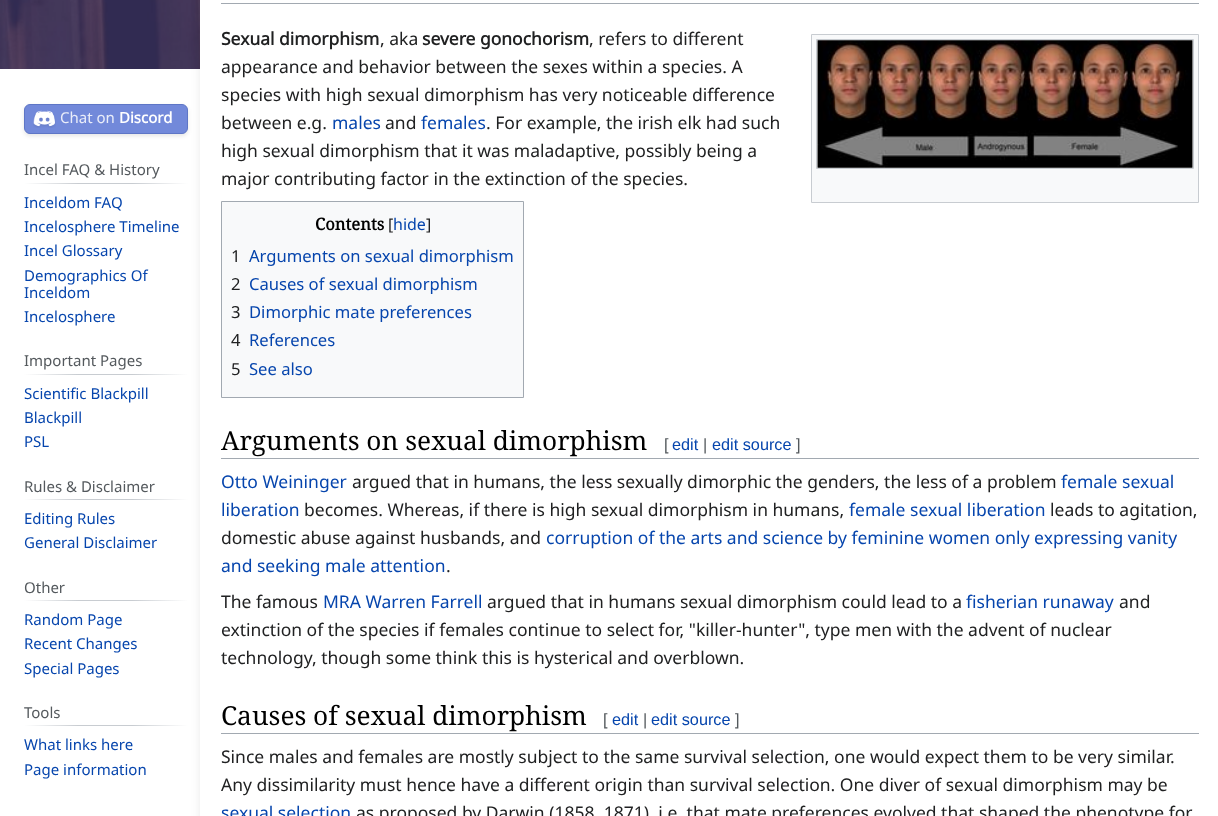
async function draw(canvas) {
	canvas.width = 1218;
	canvas.height = 816;
	const c = canvas.getContext('2d');
	c.miterLimit = 4;
	c.fontKerning = 'normal';
	async function loadImage(src) {
		const img = new Image();
		img.src = src;
		await img.decode();
		return img;
	}
	let gradient;

	c.fillStyle = '#fff';
	c.fillRect(0, 0, 1218, 816);
	c.drawImage(await loadImage('img1.png'), 0, 0, 200, 69);
	c.fillStyle = '#0000001a';
	c.filter = 'blur(2px)';
	c.beginPath();
	c.roundRect(24, 106, 164, 30, 6);
	c.fill();
	c.filter = 'none';
	c.fillStyle = '#00000026';
	c.filter = 'blur(6px)';
	c.beginPath();
	c.rect(203, -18, 1013, 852);
	c.fill();
	c.filter = 'none';
	c.fillStyle = '#7289da';
	c.beginPath();
	c.roundRect(24.5, 104.5, 163, 29, 5.5);
	c.fill();
	c.strokeStyle = '#5e76c6';
	c.stroke();
	c.drawImage(await loadImage('img2.png'), 33, 110, 23, 18);
	c.font = '15px Noto Sans';
	c.fillStyle = '#eaedf9';
	c.fillText('Chat on', 60, 123);
	c.font = 'bold 15px Noto Sans';
	c.fillStyle = '#fff';
	c.fillText('Discord', 119, 123);
	gradient = c.createLinearGradient(24, 183, 188, 183);
	gradient.addColorStop(0, '#fff');
	gradient.addColorStop(0.33, '#c8ccd1');
	gradient.addColorStop(0.66, '#c8ccd1');
	gradient.addColorStop(1, '#fff');
	c.fillStyle = gradient;
	c.fillRect(24, 183, 164, 1);
	c.font = '15px Noto Sans';
	c.fillStyle = '#54595d';
	c.fillText('Incel FAQ & History', 24, 175);
	c.fillStyle = '#0645ad';
	for (const [text, x, y] of [
		['Inceldom FAQ', 24, 208],
		['Incelosphere Timeline', 24, 232],
		['Incel Glossary', 24, 256],
		['Demographics Of', 24, 281],
		['Inceldom', 24, 298],
		['Incelosphere', 24, 322],
	]) {
		c.fillText(text, x, y);
	}
	gradient = c.createLinearGradient(24, 374, 188, 374);
	gradient.addColorStop(0, '#fff');
	gradient.addColorStop(0.33, '#c8ccd1');
	gradient.addColorStop(0.66, '#c8ccd1');
	gradient.addColorStop(1, '#fff');
	c.fillStyle = gradient;
	c.fillRect(24, 374, 164, 1);
	c.fillStyle = '#54595d';
	c.fillText('Important Pages', 24, 366);
	c.fillStyle = '#0645ad';
	for (const [text, x, y] of [
		['Scientific Blackpill', 24, 399],
		['Blackpill', 24, 423],
		['PSL', 24, 447],
	]) {
		c.fillText(text, x, y);
	}
	gradient = c.createLinearGradient(24, 499, 188, 499);
	gradient.addColorStop(0, '#fff');
	gradient.addColorStop(0.33, '#c8ccd1');
	gradient.addColorStop(0.66, '#c8ccd1');
	gradient.addColorStop(1, '#fff');
	c.fillStyle = gradient;
	c.fillRect(24, 499, 164, 1);
	c.fillStyle = '#54595d';
	c.fillText('Rules & Disclaimer', 24, 492);
	c.fillStyle = '#0645ad';
	c.fillText('Editing Rules', 24, 524);
	c.fillText('General Disclaimer', 24, 548);
	gradient = c.createLinearGradient(24, 601, 188, 601);
	gradient.addColorStop(0, '#fff');
	gradient.addColorStop(0.33, '#c8ccd1');
	gradient.addColorStop(0.66, '#c8ccd1');
	gradient.addColorStop(1, '#fff');
	c.fillStyle = gradient;
	c.fillRect(24, 600, 164, 1);
	c.fillStyle = '#54595d';
	c.fillText('Other', 24, 593);
	c.fillStyle = '#0645ad';
	for (const [text, x, y] of [
		['Random Page', 24, 625],
		['Recent Changes', 24, 649],
		['Special Pages', 24, 674],
	]) {
		c.fillText(text, x, y);
	}
	gradient = c.createLinearGradient(24, 726, 188, 726);
	gradient.addColorStop(0, '#fff');
	gradient.addColorStop(0.33, '#c8ccd1');
	gradient.addColorStop(0.66, '#c8ccd1');
	gradient.addColorStop(1, '#fff');
	c.fillStyle = gradient;
	c.fillRect(24, 725, 164, 1);
	c.fillStyle = '#54595d';
	c.fillText('Tools', 24, 718);
	c.fillStyle = '#0645ad';
	c.fillText('What links here', 24, 750);
	c.fillText('Page information', 24, 775);
	c.fillStyle = '#fff';
	c.fillRect(200, 0, 1018, 816);
	c.fillStyle = '#a2a9b1';
	c.fillRect(221, 3, 978, 1);
	c.font = 'bold 17.5px Noto Sans';
	c.fillStyle = '#202122';
	c.fillText('Sexual dimorphism', 221, 45);
	c.font = '17.5px Noto Sans';
	c.fillText(', aka', 380, 45);
	c.font = 'bold 17.5px Noto Sans';
	c.fillText('severe gonochorism', 422, 45);
	c.font = '17.5px Noto Sans';
	for (const [text, x, y] of [
		[', refers to different', 589, 45],
		['appearance and behavior between the sexes within a species. A', 221, 73],
		['species with high sexual dimorphism has very noticeable difference', 221, 101],
		['between e.g.', 221, 129],
	]) {
		c.fillText(text, x, y);
	}
	c.fillStyle = '#0645ad';
	c.fillText('males', 332, 129);
	c.fillStyle = '#202122';
	c.fillText('and', 385, 129);
	c.fillStyle = '#0645ad';
	c.fillText('females', 421, 129);
	c.fillStyle = '#202122';
	for (const [text, x, y] of [
		['. For example, the irish elk had such', 486, 129],
		['high sexual dimorphism that it was maladaptive, possibly being a', 221, 157],
		['major contributing factor in the extinction of the species.', 221, 185],
	]) {
		c.fillText(text, x, y);
	}
	c.fillStyle = '#f8f9fa';
	c.beginPath();
	c.rect(811.5, 34.5, 387, 168);
	c.fill();
	c.strokeStyle = '#c8ccd1';
	c.stroke();
	c.fillStyle = '#fff';
	c.beginPath();
	c.rect(816.5, 39.5, 377, 129);
	c.fill();
	c.stroke();
	c.drawImage(await loadImage('img3.png'), 817, 40, 376, 128);
	c.fillStyle = '#f8f9fa';
	c.beginPath();
	c.rect(221.5, 201.5, 302, 196);
	c.fill();
	c.strokeStyle = '#a2a9b1';
	c.stroke();
	c.font = 'bold 16.6px Noto Serif';
	c.fillStyle = '#000';
	c.fillText('Contents', 315, 230);
	c.font = '16px Noto Sans';
	c.fillStyle = '#202122';
	c.fillText('[', 388, 230);
	c.fillStyle = '#0645ad';
	c.fillText('hide', 393, 230);
	c.fillStyle = '#202122';
	c.fillText(']', 426, 230);
	c.font = '16.6px Noto Sans';
	c.fillText('1', 231, 262);
	c.fillStyle = '#0645ad';
	c.fillText('Arguments on sexual dimorphism', 249, 262);
	c.fillStyle = '#202122';
	c.fillText('2', 231, 290);
	c.fillStyle = '#0645ad';
	c.fillText('Causes of sexual dimorphism', 249, 290);
	c.fillStyle = '#202122';
	c.fillText('3', 231, 318);
	c.fillStyle = '#0645ad';
	c.fillText('Dimorphic mate preferences', 249, 318);
	c.fillStyle = '#202122';
	c.fillText('4', 231, 346);
	c.fillStyle = '#0645ad';
	c.fillText('References', 249, 346);
	c.fillStyle = '#202122';
	c.fillText('5', 231, 375);
	c.fillStyle = '#0645ad';
	c.fillText('See also', 249, 375);
	c.fillStyle = '#a2a9b1';
	c.fillRect(221, 458, 978, 1);
	c.font = '26.25px Noto Serif';
	c.fillStyle = '#000';
	c.fillText('Arguments on sexual dimorphism', 221, 450);
	c.font = '16.25px Liberation Sans';
	c.fillStyle = '#54595d';
	c.fillText('[', 664, 450);
	c.fillStyle = '#0645ad';
	c.fillText('edit', 672, 450);
	c.fillStyle = '#54595d';
	c.fillText('|', 703, 450);
	c.fillStyle = '#0645ad';
	c.fillText('edit source', 712, 450);
	c.fillStyle = '#54595d';
	c.fillText(']', 796, 450);
	c.font = '17.5px Noto Sans';
	c.fillStyle = '#0645ad';
	c.fillText('Otto Weininger', 221, 488);
	c.fillStyle = '#202122';
	c.fillText('argued that in humans, the less sexually dimorphic the genders, the less of a problem', 352, 488);
	c.fillStyle = '#0645ad';
	c.fillText('female sexual', 1061, 488);
	c.fillText('liberation', 221, 516);
	c.fillStyle = '#202122';
	c.fillText('becomes. Whereas, if there is high sexual dimorphism in humans,', 304, 516);
	c.fillStyle = '#0645ad';
	c.fillText('female sexual liberation', 849, 516);
	c.fillStyle = '#202122';
	c.fillText('leads to agitation,', 1050, 516);
	c.fillText('domestic abuse against husbands, and', 221, 544);
	c.fillStyle = '#0645ad';
	c.fillText('corruption of the arts and science by feminine women only expressing vanity', 546, 544);
	c.fillText('and seeking male attention', 221, 572);
	c.fillStyle = '#202122';
	c.fillText('.', 446, 572);
	c.fillText('The famous', 221, 608);
	c.fillStyle = '#0645ad';
	c.fillText('MRA Warren Farrell', 323, 608);
	c.fillStyle = '#202122';
	c.fillText('argued that in humans sexual dimorphism could lead to a', 487, 608);
	c.fillStyle = '#0645ad';
	c.fillText('fisherian runaway', 966, 608);
	c.fillStyle = '#202122';
	for (const [text, x, y] of [
		['and', 1119, 608],
		['extinction of the species if females continue to select for, "killer-hunter", type men with the advent of nuclear', 221, 636],
		['technology, though some think this is hysterical and overblown.', 221, 664],
	]) {
		c.fillText(text, x, y);
	}
	c.fillStyle = '#a2a9b1';
	c.fillRect(221, 733, 978, 1);
	c.font = '26.25px Noto Serif';
	c.fillStyle = '#000';
	c.fillText('Causes of sexual dimorphism', 221, 725);
	c.font = '16.25px Liberation Sans';
	c.fillStyle = '#54595d';
	c.fillText('[', 603, 725);
	c.fillStyle = '#0645ad';
	c.fillText('edit', 612, 725);
	c.fillStyle = '#54595d';
	c.fillText('|', 643, 725);
	c.fillStyle = '#0645ad';
	c.fillText('edit source', 651, 725);
	c.fillStyle = '#54595d';
	c.fillText(']', 735, 725);
	c.font = '17.5px Noto Sans';
	c.fillStyle = '#202122';
	c.fillText('Since males and females are mostly subject to the same survival selection, one would expect them to be very similar.', 221, 763);
	c.fillText('Any dissimilarity must hence have a different origin than survival selection. One diver of sexual dimorphism may be', 221, 791);
	c.fillStyle = '#0645ad';
	c.fillText('sexual selection', 221, 819);
	c.fillStyle = '#202122';
	c.fillText('as proposed by Darwin (1858, 1871), i.e. that mate preferences evolved that shaped the phenotype for', 356, 819);
}

draw(document.querySelector('canvas'));
